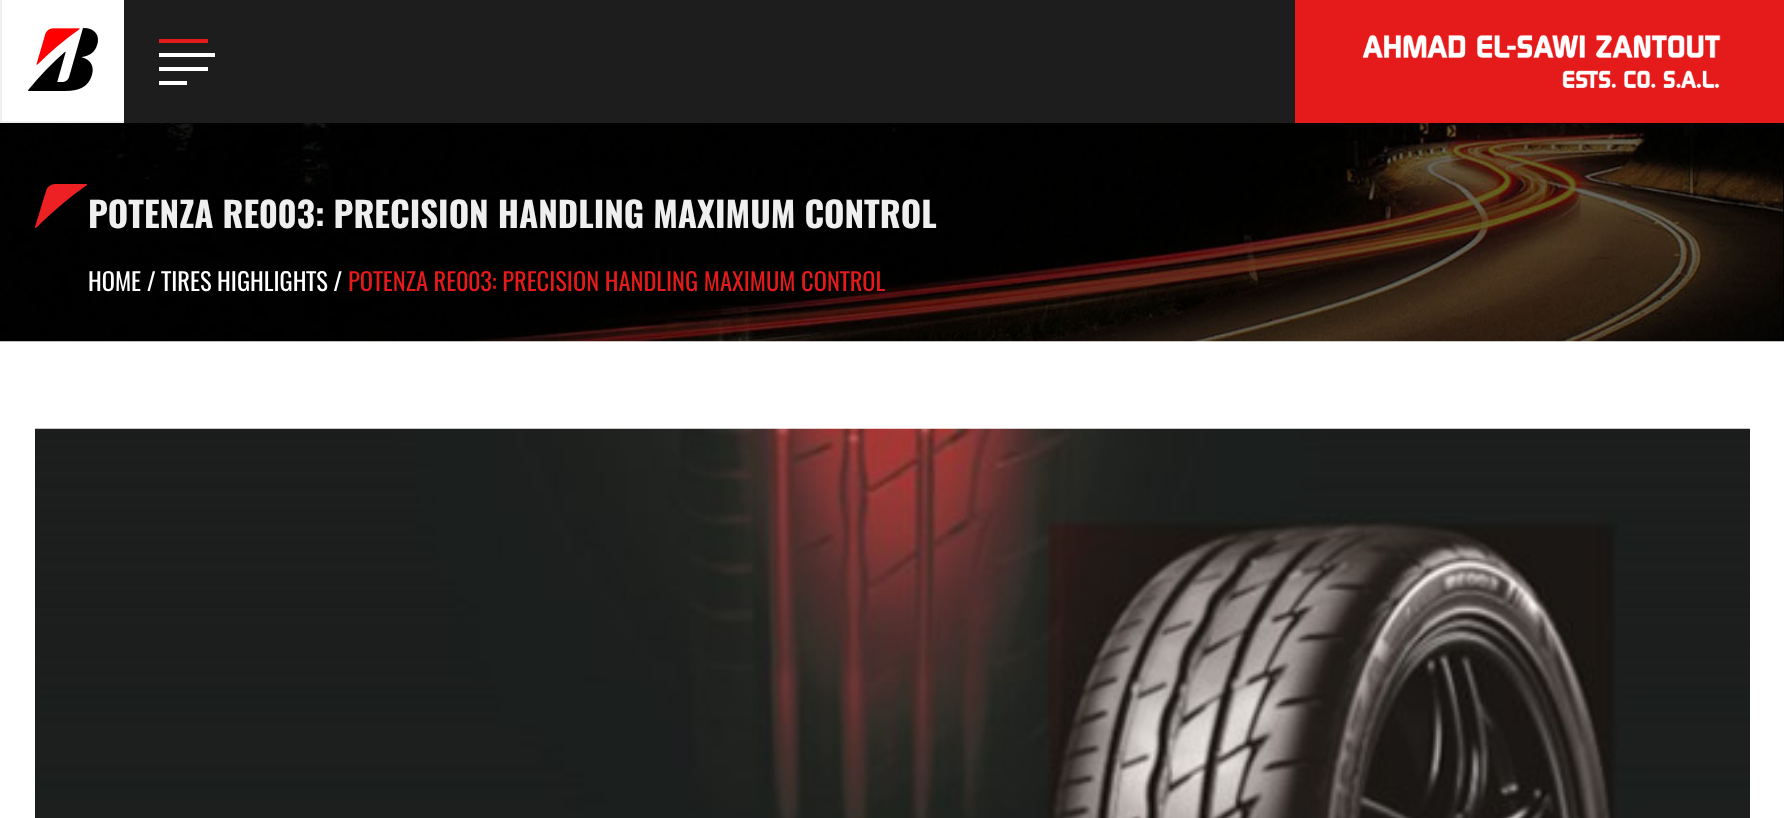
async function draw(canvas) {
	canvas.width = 1784;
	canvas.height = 818;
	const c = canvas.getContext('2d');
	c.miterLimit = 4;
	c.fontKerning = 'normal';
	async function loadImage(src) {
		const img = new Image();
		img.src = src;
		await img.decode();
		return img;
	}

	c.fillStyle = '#fff';
	c.fillRect(0, 0, 1784, 818);
	c.fillStyle = '#efefef';
	c.fillRect(0, 0, 2, 123);
	c.fillRect(2, 121, 122, 2);
	c.drawImage(await loadImage('img1.png'), 28, 28, 70, 63);
	for (const [x, y, w, h, color] of [
		[124, 0, 1171, 123, '#1d1d1d'],
		[159, 39, 49, 4, '#e51a1a'],
		[159, 53, 56, 4, '#fff'],
		[159, 67, 49, 4, '#fff'],
		[159, 81, 28, 4, '#fff'],
		[1295, 0, 489, 123, '#e51a1a'],
	]) {
		c.fillStyle = color;
		c.fillRect(x, y, w, h);
	}
	c.drawImage(await loadImage('img2.png'), 1362, 34, 359, 54);
	c.drawImage(await loadImage('img3.png'), 0, 123, 1784, 219);
	c.fillStyle = '#ed2024';
	c.beginPath();
	c.moveTo(35, 227);
	c.lineTo(46, 191);
	c.bezierCurveTo(47, 187, 51, 184, 55, 184);
	c.lineTo(87, 184);
	c.bezierCurveTo(87, 184, 87, 185, 87, 185);
	c.bezierCurveTo(71, 196, 51, 213, 36, 228);
	c.bezierCurveTo(36, 228, 35, 228, 35, 227);
	c.closePath();
	c.fill();
	c.font = 'bold 35px Oswald';
	c.fillStyle = '#efefef';
	c.fillText('POTENZA RE003: PRECISION HANDLING MAXIMUM CONTROL', 88, 228);
	c.font = '24.5px Oswald';
	c.fillStyle = '#fff';
	c.fillText('HOME / TIRES HIGHLIGHTS /', 88, 291);
	c.fillStyle = '#e51a1a';
	c.fillText('POTENZA RE003: PRECISION HANDLING MAXIMUM CONTROL', 348, 291);
	c.drawImage(await loadImage('img4.png'), 35, 428, 1715, 390);
}

draw(document.querySelector('canvas'));
